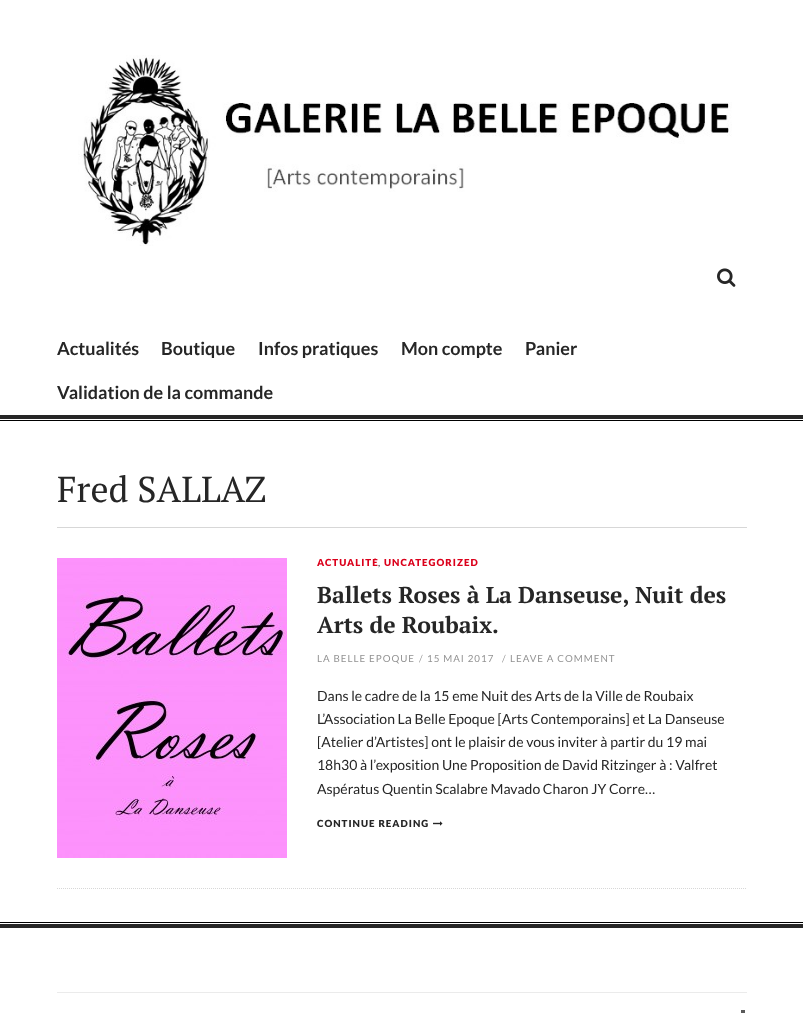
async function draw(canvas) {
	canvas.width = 803;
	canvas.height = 1013;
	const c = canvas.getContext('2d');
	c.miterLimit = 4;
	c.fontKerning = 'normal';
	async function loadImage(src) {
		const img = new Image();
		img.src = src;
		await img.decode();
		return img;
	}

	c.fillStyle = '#fff';
	c.fillRect(0, 0, 803, 1013);
	c.fillStyle = '#262626';
	c.fillRect(0, 415, 803, 4);
	c.drawImage(await loadImage('img1.png'), 78, 55, 654, 191);
	c.drawImage(await loadImage('img2.png'), 717, 268, 19, 19);
	c.font = 'bold 18px Lato';
	for (const [text, x, y] of [
		['Actualités', 57, 355],
		['Boutique', 161, 355],
		['Infos pratiques', 258, 355],
		['Mon compte', 401, 355],
		['Panier', 525, 355],
		['Validation de la commande', 57, 399],
	]) {
		c.fillText(text, x, y);
	}
	c.fillStyle = '#000';
	c.fillRect(0, 420, 803, 1);
	c.fillStyle = '#d7d7d7';
	c.fillRect(57, 527, 690, 1);
	c.font = '36px PT Serif';
	c.fillStyle = '#262626';
	c.fillText('Fred SALLAZ', 57, 502);
	c.beginPath();
	c.moveTo(57, 888.5);
	c.lineTo(747, 888.5);
	c.strokeStyle = '#d7d7d7';
	c.setLineDash([1, 1]);
	c.stroke();
	c.drawImage(await loadImage('img3.png'), 57, 558, 230, 300);
	c.save();
	c.beginPath();
	c.rect(317, 558, 430, 275);
	c.clip();
	c.letterSpacing = '1px';
	c.font = '900 9.75px Lato';
	c.fillStyle = '#db001b';
	c.fillText('ACTUALITÉ', 317, 566);
	c.restore();
	c.letterSpacing = '1px';
	c.font = '9.75px Lato';
	c.fillText(',', 378, 566);
	c.font = '900 9.75px Lato';
	c.fillStyle = '#db001b';
	c.fillText('UNCATEGORIZED', 384, 566);
	c.letterSpacing = '0px';
	c.font = 'bold 23px PT Serif';
	c.fillStyle = '#262626';
	c.fillText('Ballets Roses à La Danseuse, Nuit des', 317, 603);
	c.fillText('Arts de Roubaix.', 317, 633);
	c.letterSpacing = '1px';
	c.font = '9.75px Lato';
	c.fillStyle = '#939393';
	for (const [text, x, y] of [
		['LA BELLE EPOQUE', 317, 662],
		['/', 419, 662],
		['15 MAI 2017', 427, 662],
		['/', 502, 662],
		['LEAVE A COMMENT', 510, 662],
	]) {
		c.fillText(text, x, y);
	}
	c.letterSpacing = '0px';
	c.font = '14px Lato';
	c.fillStyle = '#262626';
	for (const [text, x, y] of [
		['Dans le cadre de la 15 eme Nuit des Arts de la Ville de Roubaix', 317, 701],
		['L’Association La Belle Epoque [Arts Contemporains] et La Danseuse', 317, 724],
		['[Atelier d’Artistes] ont le plaisir de vous inviter à partir du 19 mai', 317, 747],
		['18h30 à l’exposition Une Proposition de David Ritzinger à : Valfret', 317, 770],
		['Aspératus Quentin Scalabre Mavado Charon JY Corre…', 317, 794],
	]) {
		c.fillText(text, x, y);
	}
	c.save();
	c.beginPath();
	c.rect(317, 558, 430, 275);
	c.clip();
	c.letterSpacing = '1px';
	c.font = '900 9.75px Lato';
	c.fillText('CONTINUE READING', 317, 827);
	c.restore();
	c.drawImage(await loadImage('img4.png'), 433, 821, 10, 5);
	for (const [x, y, w, h, color] of [
		[0, 924, 803, 4, '#262626'],
		[0, 922, 803, 1, '#000'],
		[57, 992, 690, 1, '#ebebeb'],
		[741, 1010, 4, 3, '#5a5a5a'],
	]) {
		c.fillStyle = color;
		c.fillRect(x, y, w, h);
	}
}

draw(document.querySelector('canvas'));
